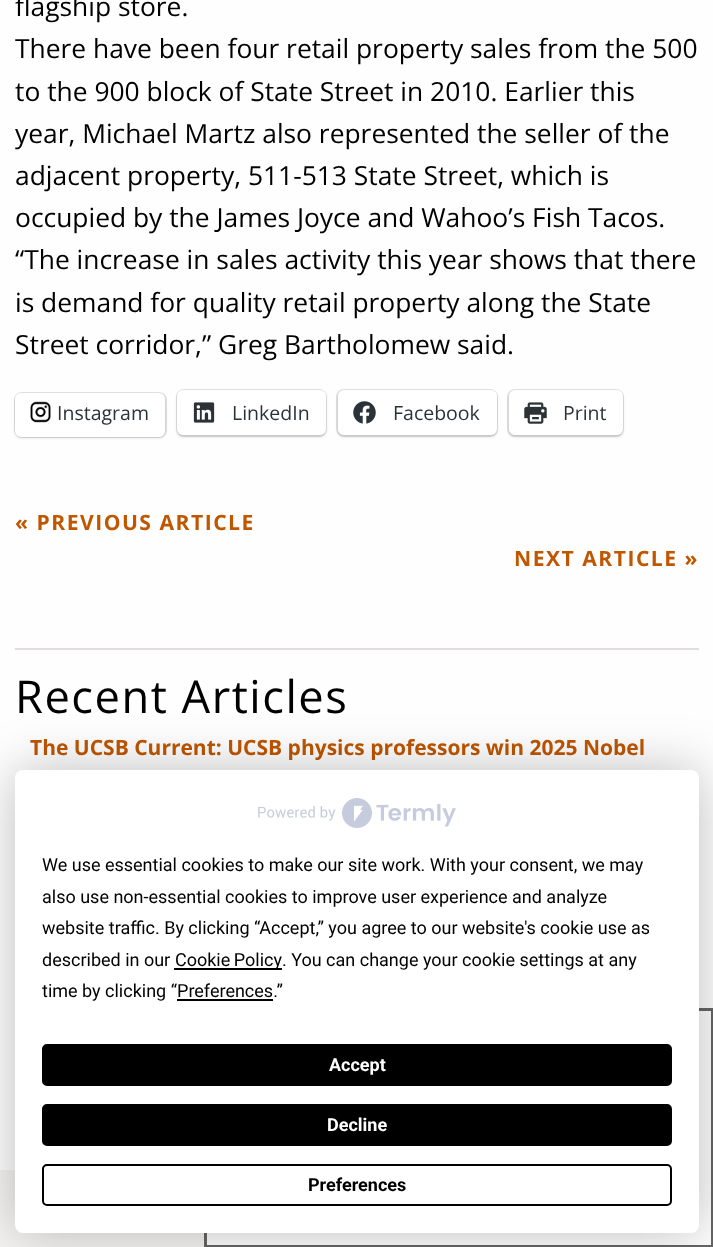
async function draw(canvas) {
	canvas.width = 713;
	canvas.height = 1247;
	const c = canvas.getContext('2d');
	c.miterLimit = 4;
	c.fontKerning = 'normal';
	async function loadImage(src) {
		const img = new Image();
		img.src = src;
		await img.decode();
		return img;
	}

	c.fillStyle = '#fefefe';
	c.fillRect(0, 0, 713, 1247);
	c.font = '26.4px Open Sans';
	c.fillStyle = '#000';
	for (const [text, x, y] of [
		['flagship store.', 15, 16],
		['There have been four retail property sales from the 500', 15, 58],
		['to the 900 block of State Street in 2010. Earlier this', 15, 101],
		['year, Michael Martz also represented the seller of the', 15, 143],
		['adjacent property, 511-513 State Street, which is', 15, 185],
		['occupied by the James Joyce and Wahoo’s Fish Tacos.', 15, 227],
		['“The increase in sales activity this year shows that there', 15, 269],
		['is demand for quality retail property along the State', 15, 312],
		['Street corridor,” Greg Bartholomew said.', 15, 354],
	]) {
		c.fillText(text, x, y);
	}
	c.beginPath();
	c.roundRect(15, 393, 151, 44, 7);
	c.strokeStyle = '#e0e0e0';
	c.lineWidth = 2;
	c.stroke();
	c.fillStyle = '#0000001f';
	c.filter = 'blur(1.5px)';
	c.beginPath();
	c.roundRect(15, 395, 150, 43, 6);
	c.fill();
	c.filter = 'none';
	c.fillStyle = '#fff';
	c.beginPath();
	c.roundRect(15, 393, 150, 44, 6);
	c.fill();
	c.drawImage(await loadImage('img1.png'), 30, 401, 21, 22);
	c.font = '19.5px Open Sans';
	c.fillStyle = '#2c3338';
	c.fillText('Instagram', 57, 420);
	c.beginPath();
	c.roundRect(177, 390, 149, 46, 7);
	c.stroke();
	c.fillStyle = '#0000001f';
	c.filter = 'blur(1.5px)';
	c.beginPath();
	c.roundRect(177, 392, 149, 45, 6);
	c.fill();
	c.filter = 'none';
	c.fillStyle = '#fff';
	c.beginPath();
	c.roundRect(177, 390, 149, 45, 6);
	c.fill();
	c.drawImage(await loadImage('img2.png'), 193, 402, 22, 21);
	c.fillStyle = '#2c3338';
	c.fillText('LinkedIn', 232, 420);
	c.beginPath();
	c.roundRect(337, 390, 160, 46, 7);
	c.stroke();
	c.fillStyle = '#0000001f';
	c.filter = 'blur(1.5px)';
	c.beginPath();
	c.roundRect(338, 392, 159, 45, 6);
	c.fill();
	c.filter = 'none';
	c.fillStyle = '#fff';
	c.beginPath();
	c.roundRect(338, 390, 159, 45, 6);
	c.fill();
	c.drawImage(await loadImage('img3.png'), 353, 401, 23, 23);
	c.fillStyle = '#2c3338';
	c.fillText('Facebook', 393, 420);
	c.beginPath();
	c.roundRect(508, 390, 115, 46, 7);
	c.stroke();
	c.fillStyle = '#0000001f';
	c.filter = 'blur(1.5px)';
	c.beginPath();
	c.roundRect(509, 392, 114, 45, 6);
	c.fill();
	c.filter = 'none';
	c.fillStyle = '#fff';
	c.beginPath();
	c.roundRect(509, 390, 114, 45, 6);
	c.fill();
	c.drawImage(await loadImage('img4.png'), 524, 402, 23, 22);
	c.fillStyle = '#2c3338';
	c.fillText('Print', 563, 420);
	c.letterSpacing = '1.5px';
	c.font = 'bold 21.1px Open Sans';
	c.fillStyle = '#bf5600';
	c.fillText('« PREVIOUS ARTICLE', 15, 530);
	c.fillText('NEXT ARTICLE »', 514, 566);
	c.fillStyle = '#e3dede';
	c.fillRect(15, 648, 684, 2);
	c.font = '45.25px Open Sans';
	c.fillStyle = '#000';
	c.fillText('Recent Articles', 15, 713);
	c.letterSpacing = '0px';
	c.font = 'bold 21px Open Sans';
	c.fillStyle = '#bf5600';
	c.fillText('The UCSB Current: UCSB physics professors win 2025 Nobel', 30, 755);
	c.fillStyle = '#f6f4f2';
	c.fillRect(0, 1170, 204, 77);
	c.strokeStyle = '#666';
	c.lineWidth = 3;
	c.strokeRect(205.5, 1009.5, 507, 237);
	c.fillStyle = '#00000040';
	c.filter = 'blur(26px)';
	c.beginPath();
	c.roundRect(15, 770, 684, 463, 8);
	c.fill();
	c.filter = 'none';
	c.fillStyle = '#fff';
	c.beginPath();
	c.roundRect(15, 770, 684, 463, 8);
	c.fill();
	c.drawImage(await loadImage('img5.png'), 258, 798, 198, 30);
	c.font = '18px Roboto';
	c.fillStyle = '#000';
	for (const [text, x, y] of [
		['We use essential cookies to make our site work. With your consent, we may', 42, 871],
		['also use non-essential cookies to improve user experience and analyze', 42, 903],
		['website traffic. By clicking “Accept,” you agree to our website\'s cookie use as', 42, 934],
		['described in our', 42, 966],
	]) {
		c.fillText(text, x, y);
	}
	c.fillRect(174, 968, 108, 2);
	c.wordSpacing = '-1px';
	c.fillText('Cookie Policy', 175, 966);
	c.wordSpacing = '0px';
	c.fillText('. You can change your cookie settings at any', 282, 966);
	c.fillText('time by clicking “Preferences.”', 42, 997);
	c.fillRect(177, 999, 96, 2);
	c.beginPath();
	c.roundRect(43, 1045, 628, 40, 4);
	c.fill();
	c.strokeStyle = '#000';
	c.lineWidth = 2;
	c.stroke();
	c.font = 'bold 18px Roboto';
	c.fillStyle = '#fff';
	c.fillText('Accept', 329, 1071);
	c.fillStyle = '#000';
	c.beginPath();
	c.roundRect(43, 1105, 628, 40, 4);
	c.fill();
	c.stroke();
	c.fillStyle = '#fff';
	c.fillText('Decline', 327, 1131);
	c.beginPath();
	c.roundRect(43, 1165, 628, 40, 4);
	c.stroke();
	c.fillStyle = '#000';
	c.fillText('Preferences', 308, 1191);
}

draw(document.querySelector('canvas'));
